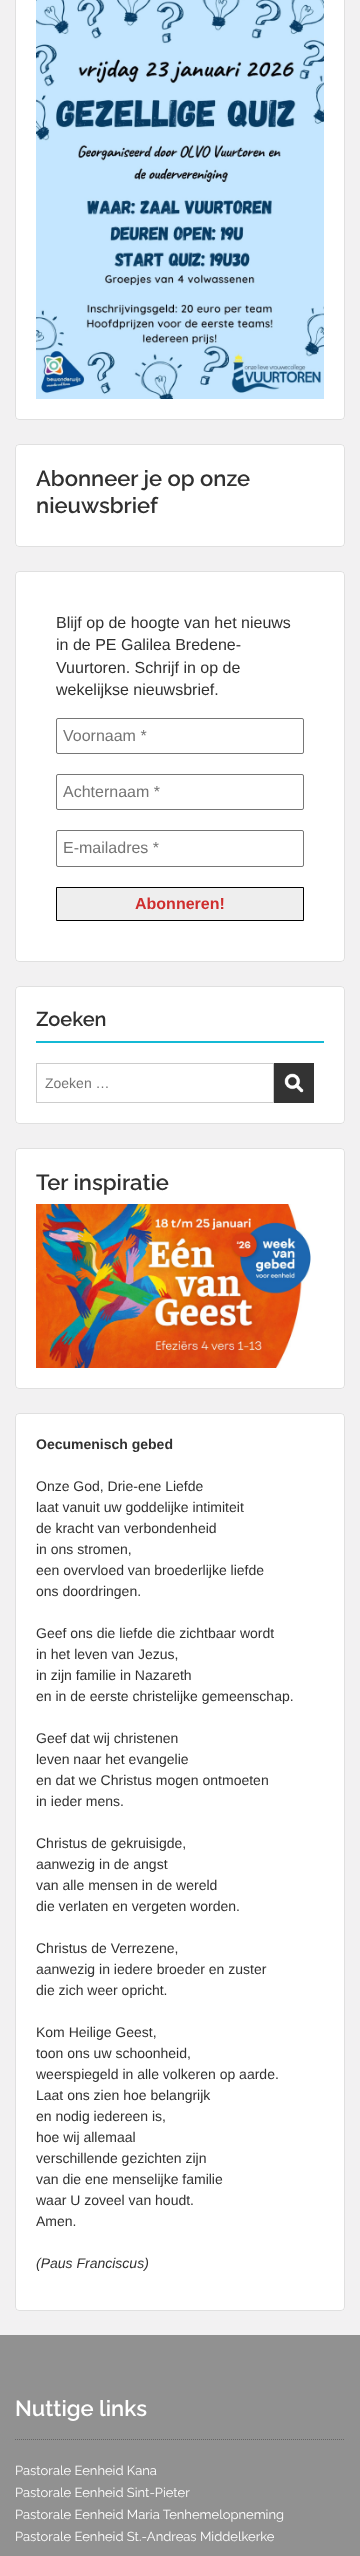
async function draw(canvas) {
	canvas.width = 360;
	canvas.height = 2556;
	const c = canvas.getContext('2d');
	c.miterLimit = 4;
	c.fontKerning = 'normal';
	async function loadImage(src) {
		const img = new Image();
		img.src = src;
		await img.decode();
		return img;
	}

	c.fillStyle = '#f2f1f2';
	c.fillRect(0, 0, 360, 2556);
	c.fillStyle = '#fff';
	c.beginPath();
	c.roundRect(15, -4, 330, 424, 4);
	c.fill();
	c.beginPath();
	c.roundRect(15.5, -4.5, 329, 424, 3.5);
	c.strokeStyle = '#0000001f';
	c.stroke();
	c.drawImage(await loadImage('img1.png'), 36, 0, 288, 399);
	c.beginPath();
	c.roundRect(15, 444, 330, 103, 4);
	c.fill();
	c.beginPath();
	c.roundRect(15.5, 444.5, 329, 102, 3.5);
	c.stroke();
	c.font = '600 22px Raleway';
	c.fillStyle = '#313131';
	c.fillText('Abonneer je op onze', 36, 486);
	c.fillText('nieuwsbrief', 36, 513);
	c.fillStyle = '#fff';
	c.beginPath();
	c.roundRect(15, 571, 330, 391, 4);
	c.fill();
	c.beginPath();
	c.roundRect(15.5, 571.5, 329, 390, 3.5);
	c.stroke();
	c.font = '16px Liberation Sans';
	c.fillStyle = '#313131';
	for (const [text, x, y] of [
		['Blijf op de hoogte van het nieuws', 56, 628],
		['in de PE Galilea Bredene-', 56, 650],
		['Vuurtoren. Schrijf in op de', 56, 673],
		['wekelijkse nieuwsbrief.', 56, 695],
	]) {
		c.fillText(text, x, y);
	}
	c.beginPath();
	c.roundRect(56.5, 718.5, 247, 35, 1.5);
	c.strokeStyle = '#767676';
	c.stroke();
	c.fillStyle = '#757575';
	c.fillText('Voornaam *', 63, 741);
	c.beginPath();
	c.roundRect(56.5, 774.5, 247, 35, 1.5);
	c.stroke();
	c.fillText('Achternaam *', 63, 797);
	c.beginPath();
	c.roundRect(56.5, 830.5, 247, 36, 1.5);
	c.stroke();
	c.fillText('E-mailadres *', 63, 853);
	c.fillStyle = '#eee';
	c.beginPath();
	c.rect(56.5, 887.5, 247, 33);
	c.fill();
	c.strokeStyle = '#000';
	c.stroke();
	c.font = 'bold 16px Liberation Sans';
	c.fillStyle = '#cf2e2e';
	c.fillText('Abonneren!', 135, 909);
	c.fillStyle = '#fff';
	c.beginPath();
	c.roundRect(15, 986, 330, 138, 4);
	c.fill();
	c.beginPath();
	c.roundRect(15.5, 986.5, 329, 137, 3.5);
	c.strokeStyle = '#0000001f';
	c.stroke();
	c.fillStyle = '#14b9d5';
	c.fillRect(36, 1041, 288, 2);
	c.font = '600 20px Raleway';
	c.fillStyle = '#313131';
	c.fillText('Zoeken', 36, 1026);
	c.strokeStyle = '#ccc';
	c.strokeRect(36.5, 1063.5, 237, 39);
	c.font = '14px Liberation Sans';
	c.fillStyle = '#757575';
	c.fillText('Zoeken …', 45, 1088);
	c.fillStyle = '#333';
	c.fillRect(274, 1063, 40, 40);
	c.drawImage(await loadImage('img2.png'), 284, 1073, 20, 20);
	c.fillStyle = '#fff';
	c.beginPath();
	c.roundRect(15, 1148, 330, 241, 4);
	c.fill();
	c.beginPath();
	c.roundRect(15.5, 1148.5, 329, 240, 3.5);
	c.strokeStyle = '#0000001f';
	c.stroke();
	c.font = '600 22px Raleway';
	c.fillStyle = '#313131';
	c.fillText('Ter inspiratie', 36, 1190);
	c.drawImage(await loadImage('img3.png'), 36, 1204, 275, 164);
	c.fillStyle = '#fff';
	c.beginPath();
	c.roundRect(15, 1413, 330, 898, 4);
	c.fill();
	c.beginPath();
	c.roundRect(15.5, 1413.5, 329, 897, 3.5);
	c.stroke();
	c.font = 'bold 14px Liberation Sans';
	c.fillStyle = '#313131';
	c.fillText('Oecumenisch gebed', 36, 1449);
	c.font = '14px Liberation Sans';
	for (const [text, x, y] of [
		['Onze God, Drie-ene Liefde', 36, 1491],
		['laat vanuit uw goddelijke intimiteit', 36, 1512],
		['de kracht van verbondenheid', 36, 1533],
		['in ons stromen,', 36, 1554],
		['een overvloed van broederlijke liefde', 36, 1575],
		['ons doordringen.', 36, 1596],
		['Geef ons die liefde die zichtbaar wordt', 36, 1638],
		['in het leven van Jezus,', 36, 1659],
		['in zijn familie in Nazareth', 36, 1680],
		['en in de eerste christelijke gemeenschap.', 36, 1701],
		['Geef dat wij christenen', 36, 1743],
		['leven naar het evangelie', 36, 1764],
		['en dat we Christus mogen ontmoeten', 36, 1785],
		['in ieder mens.', 36, 1806],
		['Christus de gekruisigde,', 36, 1848],
		['aanwezig in de angst', 36, 1869],
		['van alle mensen in de wereld', 36, 1890],
		['die verlaten en vergeten worden.', 36, 1911],
		['Christus de Verrezene,', 36, 1953],
		['aanwezig in iedere broeder en zuster', 36, 1974],
		['die zich weer opricht.', 36, 1995],
		['Kom Heilige Geest,', 36, 2037],
		['toon ons uw schoonheid,', 36, 2058],
		['weerspiegeld in alle volkeren op aarde.', 36, 2079],
		['Laat ons zien hoe belangrijk', 36, 2100],
		['en nodig iedereen is,', 36, 2121],
		['hoe wij allemaal', 36, 2142],
		['verschillende gezichten zijn', 36, 2163],
		['van die ene menselijke familie', 36, 2184],
		['waar U zoveel van houdt.', 36, 2205],
		['Amen.', 36, 2226],
	]) {
		c.fillText(text, x, y);
	}
	c.font = 'italic 14px Liberation Sans';
	c.fillText('(Paus Franciscus)', 36, 2268);
	c.fillStyle = '#919191';
	c.fillRect(0, 2335, 360, 221);
	c.beginPath();
	c.moveTo(15, 2439.5);
	c.lineTo(345, 2439.5);
	c.strokeStyle = '#666';
	c.setLineDash([1, 1]);
	c.stroke();
	c.font = '600 22px Raleway';
	c.fillStyle = '#fff';
	c.fillText('Nuttige links', 15, 2416);
	c.font = '13px Raleway';
	for (const [text, x, y] of [
		['Pastorale Eenheid Kana', 15, 2475],
		['Pastorale Eenheid Sint-Pieter', 15, 2497],
		['Pastorale Eenheid Maria Tenhemelopneming', 15, 2519],
		['Pastorale Eenheid St.-Andreas Middelkerke', 15, 2541],
	]) {
		c.fillText(text, x, y);
	}
}

draw(document.querySelector('canvas'));
